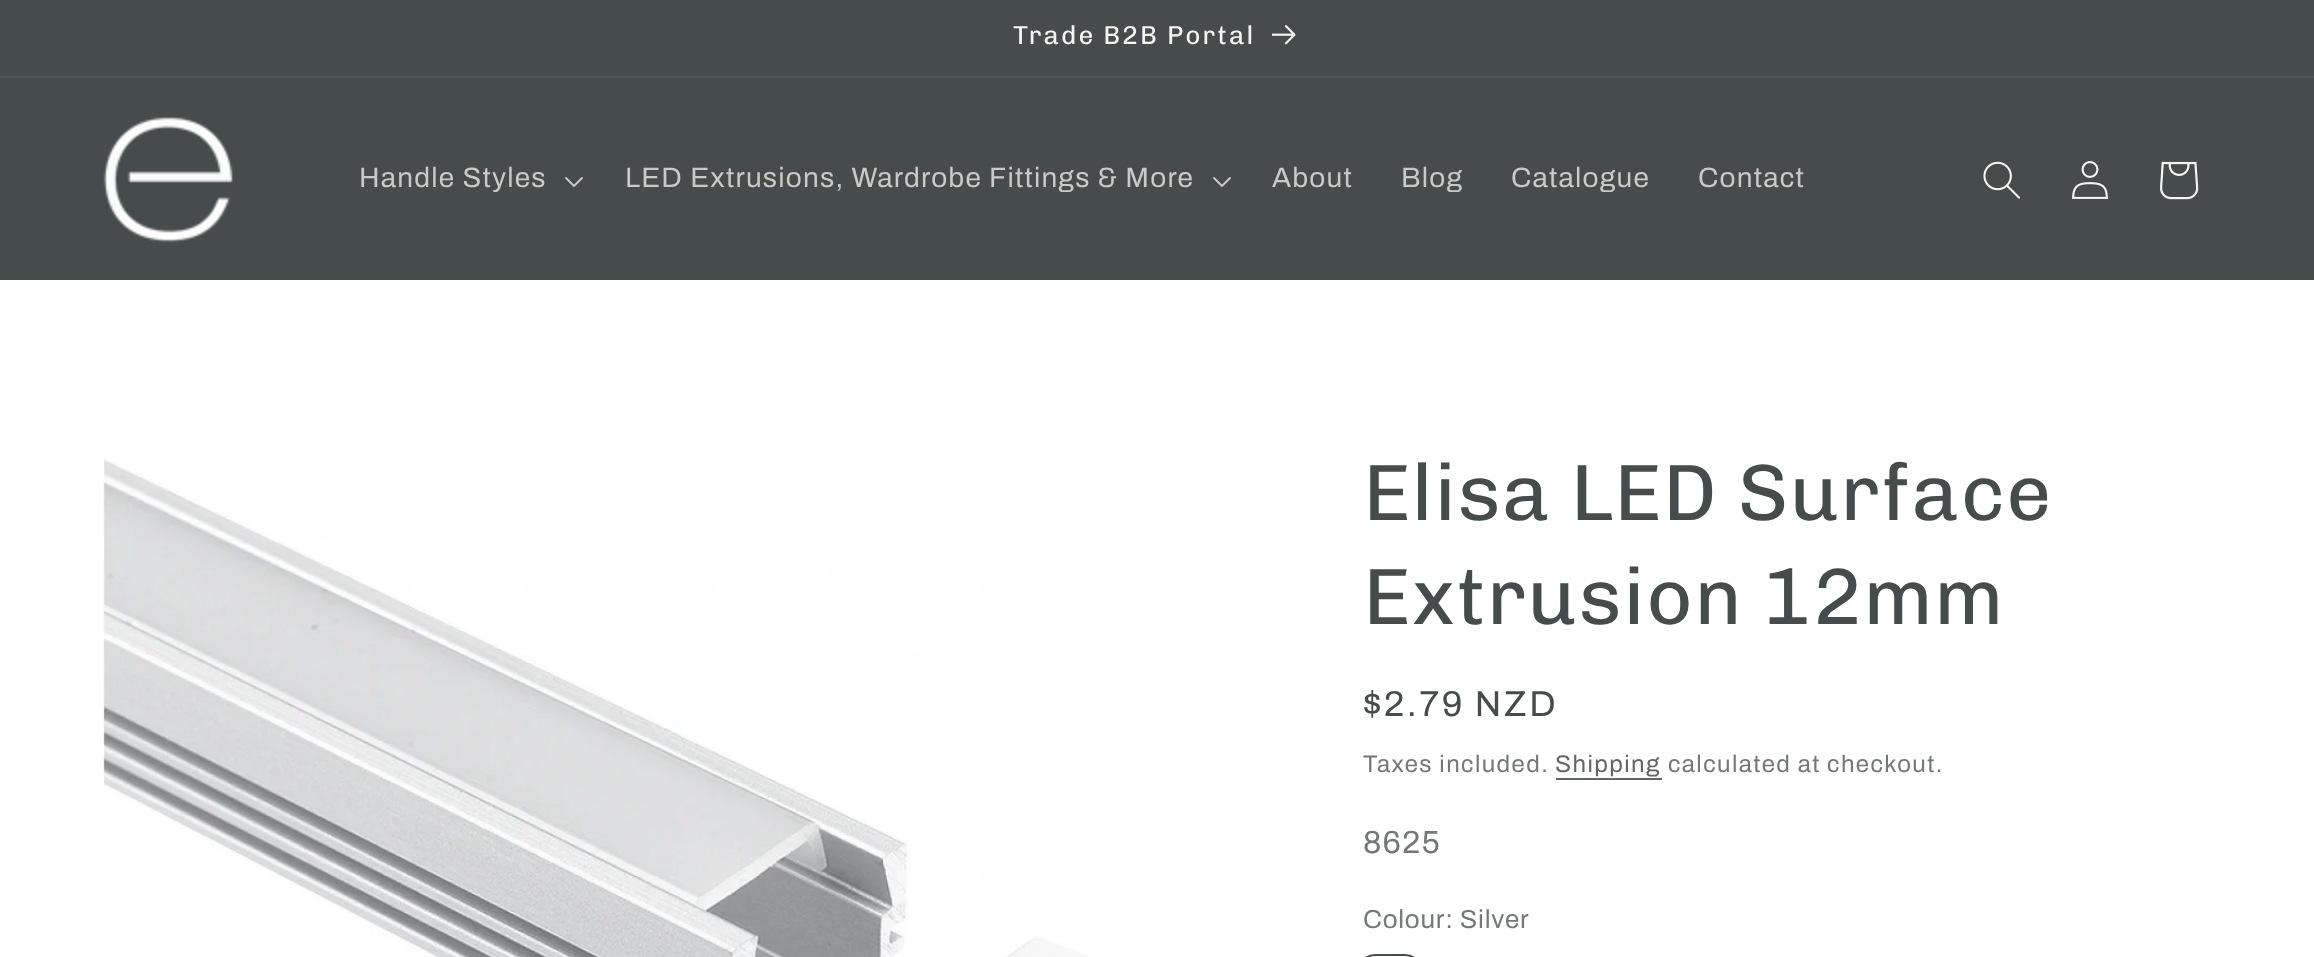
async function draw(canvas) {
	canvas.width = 2314;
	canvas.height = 957;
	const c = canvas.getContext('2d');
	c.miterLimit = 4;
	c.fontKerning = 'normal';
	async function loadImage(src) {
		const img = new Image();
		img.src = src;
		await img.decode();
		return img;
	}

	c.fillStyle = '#fff';
	c.fillRect(0, 0, 2314, 957);
	c.fillStyle = '#464b4b';
	c.fillRect(0, 0, 2314, 76);
	c.fillStyle = '#545958';
	c.fillRect(0, 76, 2314, 2);
	c.letterSpacing = '2px';
	c.font = '26px Chivo';
	c.fillStyle = '#f4f4f2';
	c.fillText('Trade B2B Portal', 1013, 44);
	c.drawImage(await loadImage('img1.png'), 1272, 25, 24, 20);
	c.fillStyle = '#464b4b';
	c.fillRect(0, 78, 2314, 202);
	c.drawImage(await loadImage('img2.png'), 103, 117, 130, 126);
	c.letterSpacing = '1.2px';
	c.font = '28px Archivo';
	c.fillStyle = '#c9cac8';
	c.fillText('Handle Styles', 359, 187);
	c.drawImage(await loadImage('img3.png'), 565, 177, 18, 10);
	c.fillText('LED Extrusions, Wardrobe Fittings & More', 625, 187);
	c.drawImage(await loadImage('img3.png'), 1213, 177, 18, 10);
	for (const [text, x, y] of [
		['About', 1272, 187],
		['Blog', 1401, 187],
		['Catalogue', 1511, 187],
		['Contact', 1698, 187],
	]) {
		c.fillText(text, x, y);
	}
	c.drawImage(await loadImage('img4.png'), 1983, 161, 37, 38);
	c.drawImage(await loadImage('img5.png'), 2072, 161, 36, 38);
	c.drawImage(await loadImage('img6.png'), 2160, 161, 39, 39);
	c.drawImage(await loadImage('img7.png'), 103, 459, 987, 498);
	c.font = '80px Chivo';
	c.fillStyle = '#464b4b';
	c.fillText('Elisa LED Surface', 1363, 520);
	c.fillText('Extrusion 12mm', 1363, 624);
	c.letterSpacing = '2.5px';
	c.font = '36px Archivo';
	c.fillText('$2.79 NZD', 1363, 716);
	c.letterSpacing = '1.4px';
	c.font = '24px Archivo';
	c.fillStyle = '#747878';
	c.fillText('Taxes included.', 1363, 772);
	c.fillStyle = '#626666';
	c.fillText('Shipping', 1555, 772);
	c.fillRect(1556, 778, 106, 2);
	c.fillStyle = '#747878';
	c.fillText('calculated at checkout.', 1668, 772);
	c.letterSpacing = '1.2px';
	c.font = '32px Archivo';
	c.fillText('8625', 1363, 853);
	c.letterSpacing = '0.75px';
	c.font = '26px Archivo';
	c.fillText('Colour: Silver', 1363, 928);
	c.beginPath();
	c.roundRect(1357, 955, 66, 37, 33);
	c.strokeStyle = '#464b4b';
	c.lineWidth = 2;
	c.stroke();
}

draw(document.querySelector('canvas'));
